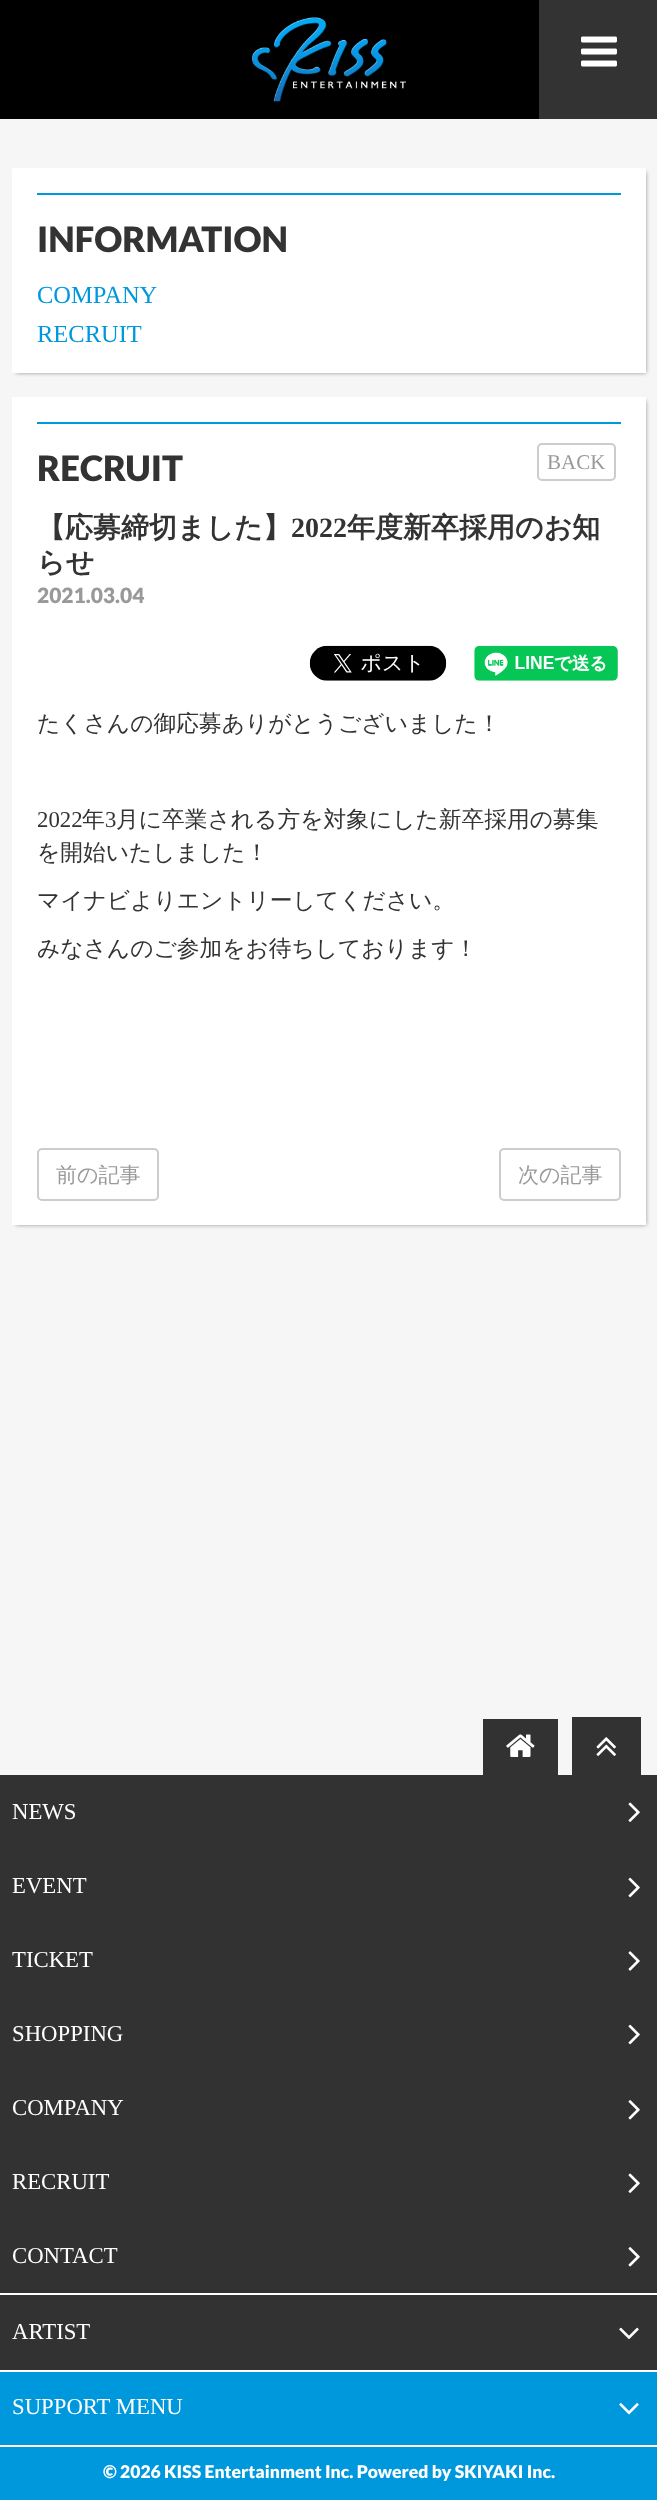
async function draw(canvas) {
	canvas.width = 657;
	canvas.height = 2500;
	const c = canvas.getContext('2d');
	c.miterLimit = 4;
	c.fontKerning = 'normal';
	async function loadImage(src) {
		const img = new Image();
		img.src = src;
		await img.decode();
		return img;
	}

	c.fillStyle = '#f6f6f6';
	c.fillRect(0, 0, 657, 2500);
	c.fillStyle = '#000';
	c.fillRect(0, 0, 539, 119);
	c.drawImage(await loadImage('img1.png'), 252, 17, 154, 85);
	c.fillStyle = '#333';
	c.fillRect(539, 0, 118, 119);
	c.drawImage(await loadImage('img2.png'), 581, 36, 36, 31);
	c.fillStyle = '#00000066';
	c.filter = 'blur(2px)';
	c.beginPath();
	c.rect(16, 172, 630, 201);
	c.fill();
	c.filter = 'none';
	c.fillStyle = '#fff';
	c.fillRect(12, 168, 634, 205);
	c.fillStyle = '#0098dc';
	c.fillRect(37, 193, 584, 2);
	c.font = '900 35px Lato';
	c.fillStyle = '#333';
	c.fillText('INFORMATION', 37, 252);
	c.font = '24.5px Liberation Serif';
	c.fillStyle = '#0098dc';
	c.fillText('COMPANY', 37, 303);
	c.fillText('RECRUIT', 37, 342);
	c.fillStyle = '#00000066';
	c.filter = 'blur(2px)';
	c.beginPath();
	c.rect(16, 401, 630, 824);
	c.fill();
	c.filter = 'none';
	c.fillStyle = '#fff';
	c.fillRect(12, 397, 634, 828);
	c.fillStyle = '#0098dc';
	c.fillRect(37, 422, 584, 2);
	c.font = '900 35px Lato';
	c.fillStyle = '#333';
	c.fillText('RECRUIT', 37, 481);
	c.beginPath();
	c.roundRect(538, 444, 77, 36, 4);
	c.strokeStyle = '#ccc';
	c.lineWidth = 2;
	c.stroke();
	c.font = '21px Liberation Serif';
	c.fillStyle = '#999';
	c.fillText('BACK', 547, 469);
	c.font = 'bold 28px WenQuanYi Zen Hei';
	c.fillStyle = '#333';
	c.fillText('【応募締切ました】', 37, 537);
	c.font = 'bold 28px Liberation Serif';
	c.fillText('2022', 291, 537);
	c.font = 'bold 28px WenQuanYi Zen Hei';
	c.fillText('年度新卒採用のお知', 347, 537);
	c.fillText('らせ', 37, 572);
	c.font = '900 21px Lato';
	c.fillStyle = '#999';
	c.fillText('2021.03.04', 37, 603);
	c.drawImage(await loadImage('img3.png'), 309, 645, 138, 36);
	c.drawImage(await loadImage('img4.png'), 474, 645, 144, 36);
	c.font = '500 22.75px WenQuanYi Zen Hei';
	c.fillStyle = '#333';
	c.fillText('たくさんの御応募ありがとうございました！', 37, 731);
	c.font = '22.75px Liberation Serif';
	c.fillText('2022', 37, 827);
	c.font = '500 22.75px WenQuanYi Zen Hei';
	c.fillText('年', 82, 827);
	c.font = '22.75px Liberation Serif';
	c.fillText('3', 105, 827);
	c.font = '500 22.75px WenQuanYi Zen Hei';
	for (const [text, x, y] of [
		['月に卒業される方を対象にした新卒採用の募集', 116, 827],
		['を開始いたしました！', 37, 860],
		['マイナビよりエントリーしてください。', 37, 908],
		['みなさんのご参加をお待ちしております！', 37, 956],
	]) {
		c.fillText(text, x, y);
	}
	c.beginPath();
	c.roundRect(38, 1149, 120, 51, 4);
	c.stroke();
	c.font = '500 21px WenQuanYi Zen Hei';
	c.fillStyle = '#999';
	c.fillText('前の記事', 56, 1182);
	c.beginPath();
	c.roundRect(500, 1149, 120, 51, 4);
	c.stroke();
	c.fillText('次の記事', 518, 1182);
	c.fillStyle = '#323232';
	c.fillRect(0, 1775, 657, 595);
	c.fillRect(483, 1719, 75, 56);
	c.drawImage(await loadImage('img5.png'), 506, 1734, 29, 23);
	c.fillRect(572, 1717, 69, 58);
	c.drawImage(await loadImage('img6.png'), 596, 1737, 20, 19);
	c.font = '22.75px Liberation Serif';
	c.fillStyle = '#fff';
	c.fillText('NEWS', 12, 1819);
	c.drawImage(await loadImage('img7.png'), 628, 1802, 12, 20);
	c.fillText('EVENT', 12, 1893);
	c.drawImage(await loadImage('img8.png'), 628, 1877, 12, 21);
	c.fillText('TICKET', 12, 1967);
	c.drawImage(await loadImage('img9.png'), 628, 1951, 12, 20);
	c.fillText('SHOPPING', 12, 2041);
	c.drawImage(await loadImage('img8.png'), 628, 2024, 12, 21);
	c.fillText('COMPANY', 12, 2115);
	c.drawImage(await loadImage('img10.png'), 628, 2100, 12, 20);
	c.fillText('RECRUIT', 12, 2189);
	c.drawImage(await loadImage('img7.png'), 628, 2173, 12, 20);
	c.fillText('CONTACT', 12, 2263);
	c.drawImage(await loadImage('img10.png'), 628, 2247, 12, 20);
	c.fillRect(0, 2293, 657, 2);
	c.fillText('ARTIST', 12, 2339);
	c.drawImage(await loadImage('img11.png'), 619, 2327, 20, 12);
	for (const [x, y, w, h, color] of [
		[0, 2372, 657, 128, '#0098dc'],
		[0, 2370, 657, 2, '#fff'],
		[0, 2445, 657, 2, '#fff'],
	]) {
		c.fillStyle = color;
		c.fillRect(x, y, w, h);
	}
	c.fillText('SUPPORT MENU', 12, 2414);
	c.drawImage(await loadImage('img12.png'), 619, 2403, 20, 12);
	c.font = '900 17.5px Lato';
	c.fillText('© 2026 KISS Entertainment Inc. Powered by SKIYAKI Inc.', 103, 2478);
}

draw(document.querySelector('canvas'));
